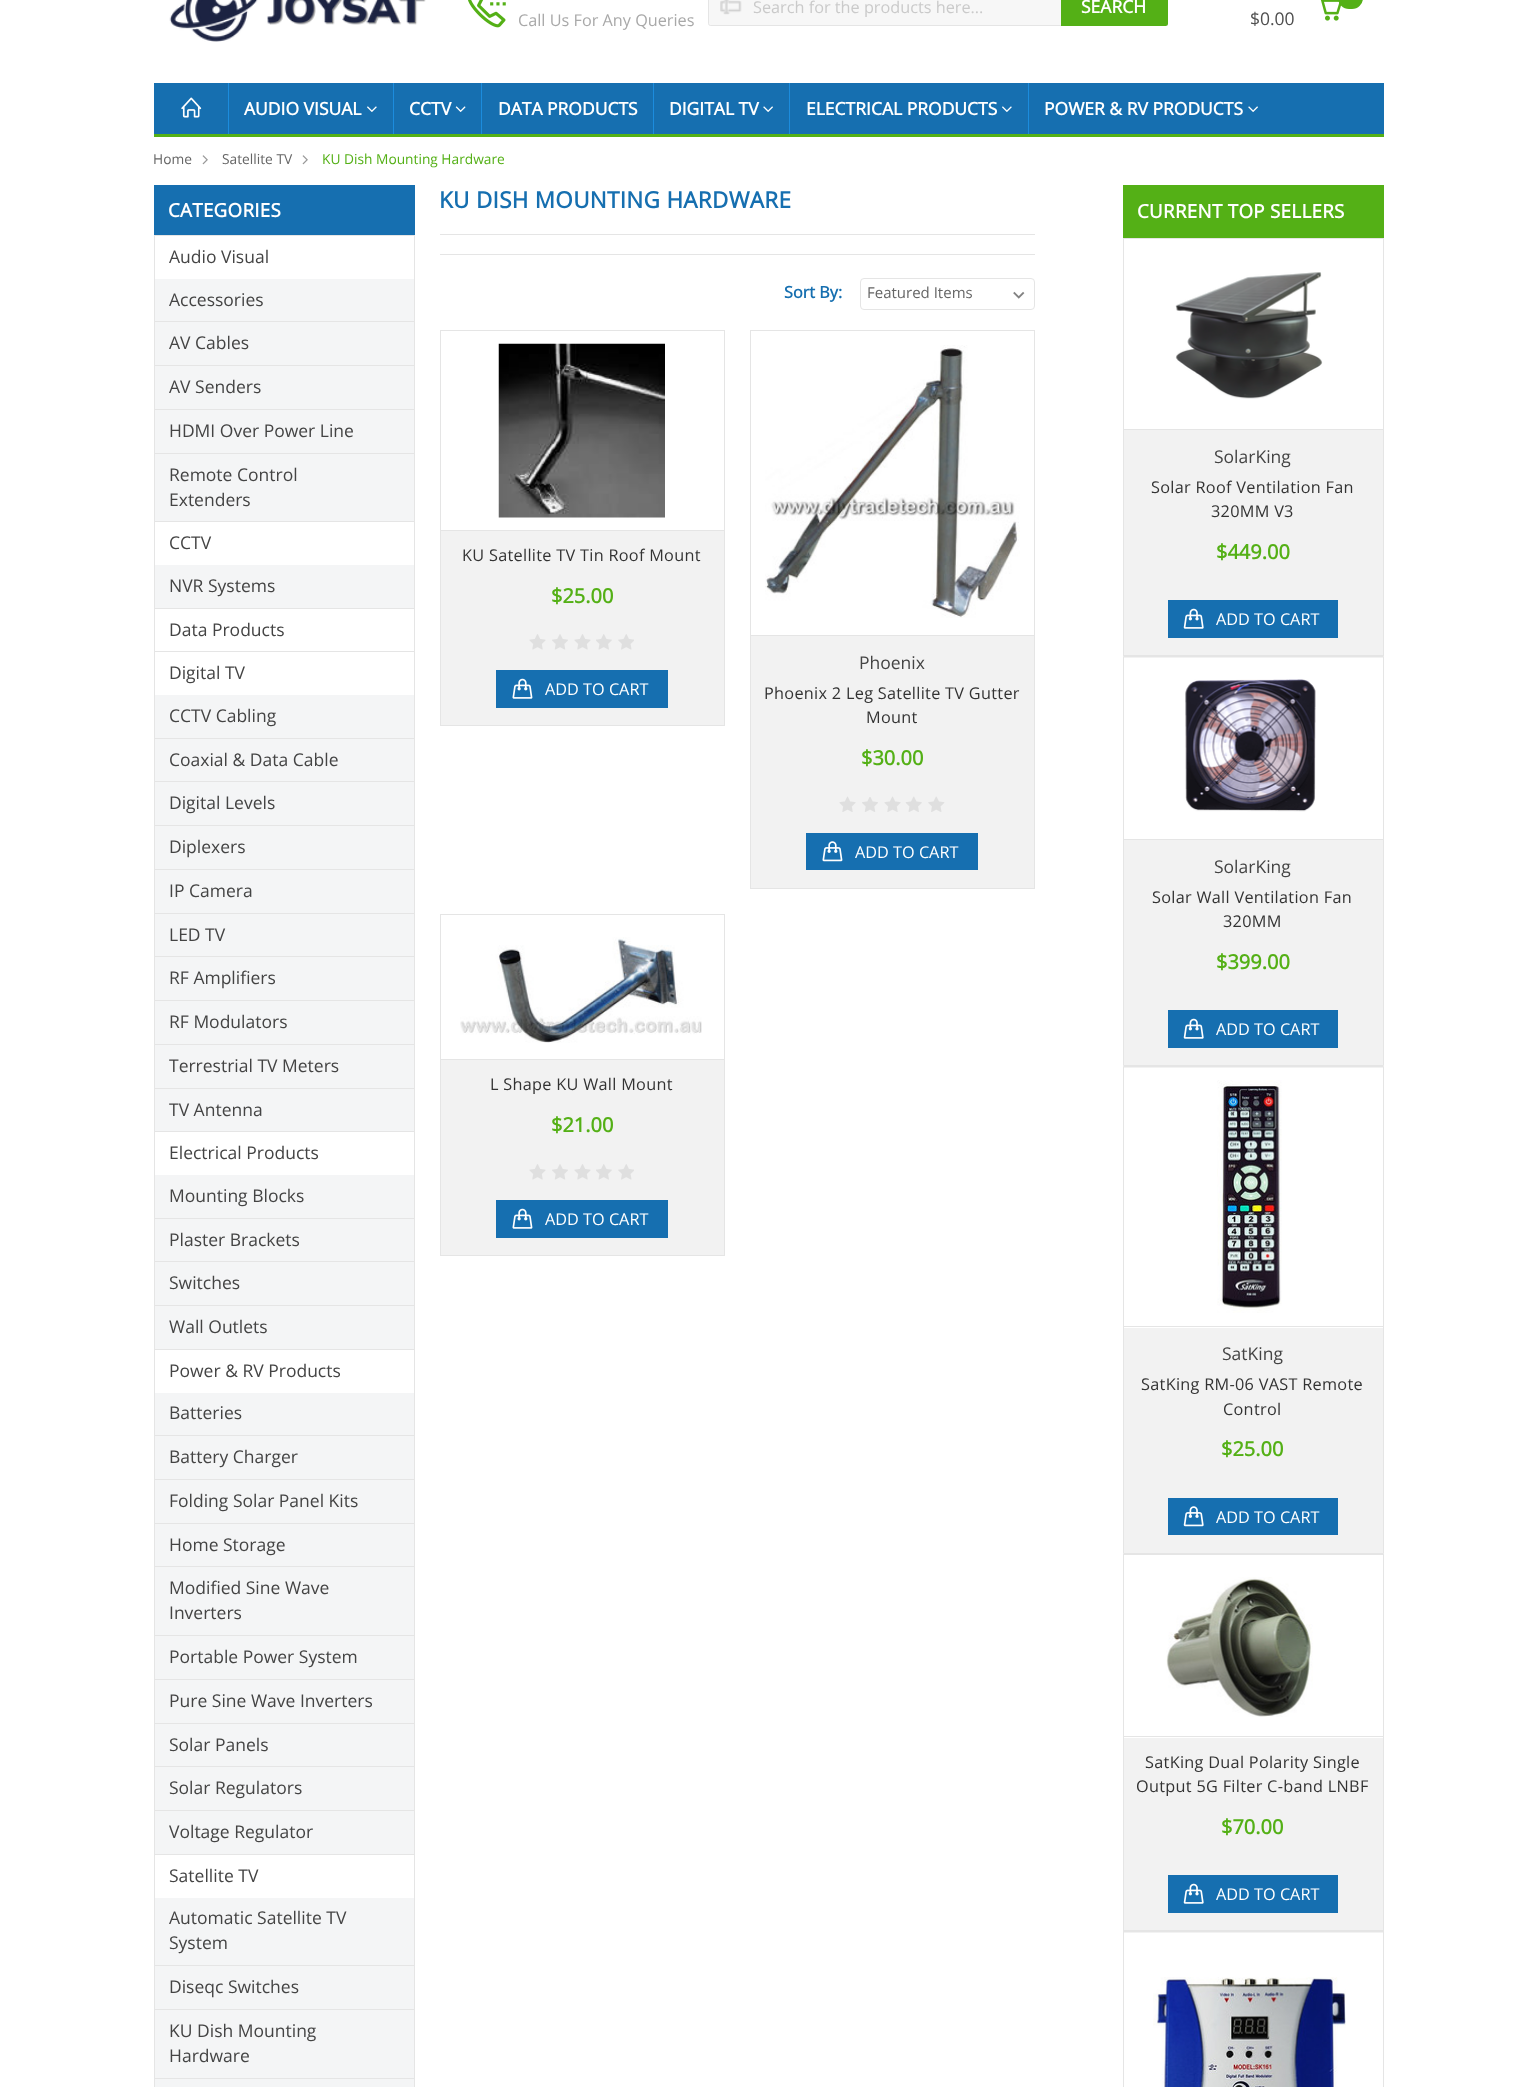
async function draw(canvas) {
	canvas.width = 1536;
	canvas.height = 2087;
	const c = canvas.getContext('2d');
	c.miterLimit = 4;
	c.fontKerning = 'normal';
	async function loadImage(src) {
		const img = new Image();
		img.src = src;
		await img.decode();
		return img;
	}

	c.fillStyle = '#fff';
	c.fillRect(0, 0, 1536, 2087);
	c.drawImage(await loadImage('img1.png'), 169, 0, 257, 42);
	c.fillStyle = '#f7f7f7';
	c.beginPath();
	c.moveTo(710.5, -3);
	c.lineTo(1168, -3);
	c.lineTo(1168, 26);
	c.lineTo(710.5, 26);
	c.bezierCurveTo(709, 26, 708, 25, 708, 23.5);
	c.lineTo(708, -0.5);
	c.bezierCurveTo(708, -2, 709, -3, 710.5, -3);
	c.closePath();
	c.fill();
	c.drawImage(await loadImage('img2.png'), 720, 0, 22, 15);
	c.beginPath();
	c.moveTo(710.5, -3.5);
	c.lineTo(1167.5, -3.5);
	c.lineTo(1167.5, 25.5);
	c.lineTo(710.5, 25.5);
	c.bezierCurveTo(709.5, 25.5, 708.5, 24.5, 708.5, 23.5);
	c.lineTo(708.5, -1.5);
	c.bezierCurveTo(708.5, -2.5, 709.5, -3.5, 710.5, -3.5);
	c.closePath();
	c.strokeStyle = '#e5e5e5';
	c.stroke();
	c.font = '16.25px Open Sans';
	c.fillStyle = '#cacaca';
	c.fillText('Search for the products here...', 753, 13);
	c.fillStyle = '#54b016';
	c.beginPath();
	c.moveTo(1061, -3);
	c.lineTo(1165.5, -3);
	c.bezierCurveTo(1167, -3, 1168, -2, 1168, -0.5);
	c.lineTo(1168, 23.5);
	c.bezierCurveTo(1168, 25, 1167, 26, 1165.5, 26);
	c.lineTo(1061, 26);
	c.closePath();
	c.fill();
	c.font = 'bold 17.5px Open Sans';
	c.fillStyle = '#fff';
	c.fillText('SEARCH', 1081, 13);
	c.drawImage(await loadImage('img3.png'), 468, 0, 38, 28);
	c.font = '16.25px Open Sans';
	c.fillStyle = '#a9a9a9';
	c.fillText('Call Us For Any Queries', 518, 26);
	c.font = '17.5px Open Sans';
	c.fillStyle = '#4f4f4f';
	c.fillText('$0.00', 1250, 25);
	c.drawImage(await loadImage('img4.png'), 1320, 0, 22, 21);
	c.fillStyle = '#54b016';
	c.beginPath();
	c.roundRect(1338, -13, 25, 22, 12.5);
	c.fill();
	c.fillStyle = '#166fb0';
	c.fillRect(154, 83, 1230, 51);
	c.fillStyle = '#54b016';
	c.fillRect(154, 134, 1230, 3);
	c.drawImage(await loadImage('img5.png'), 181, 97, 21, 21);
	c.fillStyle = '#1c8cdd';
	c.fillRect(228, 83, 1, 51);
	c.font = 'bold 17.5px Open Sans';
	c.fillStyle = '#fff';
	c.fillText('AUDIO VISUAL', 244, 115);
	c.drawImage(await loadImage('img6.png'), 367, 106, 10, 6);
	c.fillStyle = '#1c8cdd';
	c.fillRect(393, 83, 1, 51);
	c.fillStyle = '#fff';
	c.fillText('CCTV', 409, 115);
	c.drawImage(await loadImage('img7.png'), 455, 106, 11, 6);
	c.fillStyle = '#1c8cdd';
	c.fillRect(481, 83, 1, 51);
	c.fillStyle = '#fff';
	c.fillText('DATA PRODUCTS', 498, 115);
	c.fillStyle = '#1c8cdd';
	c.fillRect(653, 83, 1, 51);
	c.fillStyle = '#fff';
	c.fillText('DIGITAL TV', 669, 115);
	c.drawImage(await loadImage('img8.png'), 763, 106, 10, 6);
	c.fillStyle = '#1c8cdd';
	c.fillRect(789, 83, 1, 51);
	c.fillStyle = '#fff';
	c.fillText('ELECTRICAL PRODUCTS', 806, 115);
	c.drawImage(await loadImage('img6.png'), 1002, 106, 10, 6);
	c.fillStyle = '#1c8cdd';
	c.fillRect(1028, 83, 1, 51);
	c.fillStyle = '#fff';
	c.fillText('POWER & RV PRODUCTS', 1044, 115);
	c.drawImage(await loadImage('img8.png'), 1248, 106, 10, 6);
	c.font = '13.75px Open Sans';
	c.fillStyle = '#666';
	c.fillText('Home', 153, 164);
	c.drawImage(await loadImage('img9.png'), 202, 155, 6, 10);
	c.fillText('Satellite TV', 222, 164);
	c.drawImage(await loadImage('img9.png'), 302, 155, 6, 10);
	c.fillStyle = '#54b016';
	c.fillText('KU Dish Mounting Hardware', 322, 164);
	c.fillStyle = '#166fb0';
	c.fillRect(154, 185, 261, 50);
	c.letterSpacing = '0.3px';
	c.font = 'bold 18.75px Open Sans';
	c.fillStyle = '#fff';
	c.fillText('CATEGORIES', 168, 217);
	c.strokeRect(154.5, 235.5, 260, 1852);
	c.letterSpacing = '0px';
	c.font = '17.5px Open Sans';
	c.fillStyle = '#444';
	c.fillText('Audio Visual', 169, 263);
	c.fillStyle = '#f4f5f6';
	c.fillRect(155, 279, 259, 242);
	c.fillStyle = '#444';
	c.fillText('Accessories', 169, 306);
	c.fillStyle = '#e5e5e5';
	c.fillRect(155, 321, 259, 1);
	c.fillStyle = '#444';
	c.fillText('AV Cables', 169, 349);
	c.fillStyle = '#e5e5e5';
	c.fillRect(155, 365, 259, 1);
	c.fillStyle = '#444';
	c.fillText('AV Senders', 169, 393);
	c.fillStyle = '#e5e5e5';
	c.fillRect(155, 409, 259, 1);
	c.fillStyle = '#444';
	c.fillText('HDMI Over Power Line', 169, 437);
	c.fillStyle = '#e5e5e5';
	c.fillRect(155, 453, 259, 1);
	c.fillStyle = '#444';
	c.fillText('Remote Control', 169, 481);
	c.fillText('Extenders', 169, 506);
	c.fillStyle = '#e5e5e5';
	c.fillRect(155, 521, 259, 1);
	c.fillStyle = '#444';
	c.fillText('CCTV', 169, 549);
	c.fillStyle = '#f4f5f6';
	c.fillRect(155, 565, 259, 43);
	c.fillStyle = '#444';
	c.fillText('NVR Systems', 169, 592);
	c.fillStyle = '#e5e5e5';
	c.fillRect(155, 608, 259, 1);
	c.fillStyle = '#444';
	c.fillText('Data Products', 169, 636);
	c.fillStyle = '#e5e5e5';
	c.fillRect(155, 651, 259, 1);
	c.fillStyle = '#444';
	c.fillText('Digital TV', 169, 679);
	c.fillStyle = '#f4f5f6';
	c.fillRect(155, 695, 259, 436);
	c.fillStyle = '#444';
	c.fillText('CCTV Cabling', 169, 722);
	c.fillStyle = '#e5e5e5';
	c.fillRect(155, 738, 259, 1);
	c.fillStyle = '#444';
	c.fillText('Coaxial & Data Cable', 169, 766);
	c.fillStyle = '#e5e5e5';
	c.fillRect(155, 781, 259, 1);
	c.fillStyle = '#444';
	c.fillText('Digital Levels', 169, 809);
	c.fillStyle = '#e5e5e5';
	c.fillRect(155, 825, 259, 1);
	c.fillStyle = '#444';
	c.fillText('Diplexers', 169, 853);
	c.fillStyle = '#e5e5e5';
	c.fillRect(155, 869, 259, 1);
	c.fillStyle = '#444';
	c.fillText('IP Camera', 169, 897);
	c.fillStyle = '#e5e5e5';
	c.fillRect(155, 913, 259, 1);
	c.fillStyle = '#444';
	c.fillText('LED TV', 169, 941);
	c.fillStyle = '#e5e5e5';
	c.fillRect(155, 956, 259, 1);
	c.fillStyle = '#444';
	c.fillText('RF Amplifiers', 169, 984);
	c.fillStyle = '#e5e5e5';
	c.fillRect(155, 1000, 259, 1);
	c.fillStyle = '#444';
	c.fillText('RF Modulators', 169, 1028);
	c.fillStyle = '#e5e5e5';
	c.fillRect(155, 1044, 259, 1);
	c.fillStyle = '#444';
	c.fillText('Terrestrial TV Meters', 169, 1072);
	c.fillStyle = '#e5e5e5';
	c.fillRect(155, 1088, 259, 1);
	c.fillStyle = '#444';
	c.fillText('TV Antenna', 169, 1116);
	c.fillStyle = '#e5e5e5';
	c.fillRect(155, 1131, 259, 1);
	c.fillStyle = '#444';
	c.fillText('Electrical Products', 169, 1159);
	c.fillStyle = '#f4f5f6';
	c.fillRect(155, 1175, 259, 174);
	c.fillStyle = '#444';
	c.fillText('Mounting Blocks', 169, 1202);
	c.fillStyle = '#e5e5e5';
	c.fillRect(155, 1218, 259, 1);
	c.fillStyle = '#444';
	c.fillText('Plaster Brackets', 169, 1246);
	c.fillStyle = '#e5e5e5';
	c.fillRect(155, 1261, 259, 1);
	c.fillStyle = '#444';
	c.fillText('Switches', 169, 1289);
	c.fillStyle = '#e5e5e5';
	c.fillRect(155, 1305, 259, 1);
	c.fillStyle = '#444';
	c.fillText('Wall Outlets', 169, 1333);
	c.fillStyle = '#e5e5e5';
	c.fillRect(155, 1349, 259, 1);
	c.fillStyle = '#444';
	c.fillText('Power & RV Products', 169, 1377);
	c.fillStyle = '#f4f5f6';
	c.fillRect(155, 1393, 259, 461);
	c.fillStyle = '#444';
	c.fillText('Batteries', 169, 1419);
	c.fillStyle = '#e5e5e5';
	c.fillRect(155, 1435, 259, 1);
	c.fillStyle = '#444';
	c.fillText('Battery Charger', 169, 1463);
	c.fillStyle = '#e5e5e5';
	c.fillRect(155, 1479, 259, 1);
	c.fillStyle = '#444';
	c.fillText('Folding Solar Panel Kits', 169, 1507);
	c.fillStyle = '#e5e5e5';
	c.fillRect(155, 1523, 259, 1);
	c.fillStyle = '#444';
	c.fillText('Home Storage', 169, 1551);
	c.fillStyle = '#e5e5e5';
	c.fillRect(155, 1566, 259, 1);
	c.fillStyle = '#444';
	c.fillText('Modified Sine Wave', 169, 1594);
	c.fillText('Inverters', 169, 1619);
	c.fillStyle = '#e5e5e5';
	c.fillRect(155, 1635, 259, 1);
	c.fillStyle = '#444';
	c.fillText('Portable Power System', 169, 1663);
	c.fillStyle = '#e5e5e5';
	c.fillRect(155, 1679, 259, 1);
	c.fillStyle = '#444';
	c.fillText('Pure Sine Wave Inverters', 169, 1707);
	c.fillStyle = '#e5e5e5';
	c.fillRect(155, 1723, 259, 1);
	c.fillStyle = '#444';
	c.fillText('Solar Panels', 169, 1751);
	c.fillStyle = '#e5e5e5';
	c.fillRect(155, 1766, 259, 1);
	c.fillStyle = '#444';
	c.fillText('Solar Regulators', 169, 1794);
	c.fillStyle = '#e5e5e5';
	c.fillRect(155, 1810, 259, 1);
	c.fillStyle = '#444';
	c.fillText('Voltage Regulator', 169, 1838);
	c.fillStyle = '#e5e5e5';
	c.fillRect(155, 1854, 259, 1);
	c.fillStyle = '#444';
	c.fillText('Satellite TV', 169, 1882);
	c.fillStyle = '#f4f5f6';
	c.fillRect(155, 1898, 259, 189);
	c.fillStyle = '#444';
	c.fillText('Automatic Satellite TV', 169, 1924);
	c.fillText('System', 169, 1949);
	c.fillStyle = '#e5e5e5';
	c.fillRect(155, 1965, 259, 1);
	c.fillStyle = '#444';
	c.fillText('Diseqc Switches', 169, 1993);
	c.fillStyle = '#e5e5e5';
	c.fillRect(155, 2009, 259, 1);
	c.fillStyle = '#444';
	c.fillText('KU Dish Mounting', 169, 2037);
	c.fillText('Hardware', 169, 2062);
	c.fillStyle = '#e5e5e5';
	c.fillRect(155, 2078, 259, 1);
	c.fillRect(440, 234, 595, 1);
	c.letterSpacing = '0.3px';
	c.font = 'bold 22.5px Open Sans';
	c.fillStyle = '#166fb0';
	c.fillText('KU DISH MOUNTING HARDWARE', 439, 208);
	c.fillStyle = '#e5e5e5';
	c.fillRect(440, 254, 595, 1);
	c.letterSpacing = '0px';
	c.font = 'bold 16.25px Open Sans';
	c.fillStyle = '#166fb0';
	c.fillText('Sort By:', 784, 298);
	c.drawImage(await loadImage('img10.png'), 1013, 291, 12, 8);
	c.beginPath();
	c.roundRect(860.5, 278.5, 174, 31, 3.5);
	c.stroke();
	c.font = '15px Open Sans';
	c.fillStyle = '#666';
	c.fillText('Featured Items', 867, 298);
	c.fillStyle = '#f2f2f2';
	c.fillRect(441, 531, 283, 194);
	c.strokeRect(440.5, 330.5, 284, 395);
	c.fillStyle = '#e5e5e5';
	c.fillRect(441, 530, 283, 1);
	c.drawImage(await loadImage('img11.png'), 498, 343, 167, 175);
	c.letterSpacing = '0.3px';
	c.font = '16.25px Open Sans';
	c.fillStyle = '#333';
	c.fillText('KU Satellite TV Tin Roof Mount', 462, 561);
	c.letterSpacing = '0px';
	c.font = 'bold 20px Open Sans';
	c.fillStyle = '#54b016';
	c.fillText('$25.00', 551, 603);
	c.drawImage(await loadImage('img12.png'), 529, 634, 17, 16);
	c.drawImage(await loadImage('img13.png'), 552, 634, 16, 16);
	c.drawImage(await loadImage('img12.png'), 574, 634, 17, 16);
	c.drawImage(await loadImage('img14.png'), 596, 634, 16, 16);
	c.drawImage(await loadImage('img15.png'), 618, 634, 16, 16);
	c.fillStyle = '#166fb0';
	c.fillRect(496, 670, 172, 38);
	c.drawImage(await loadImage('img16.png'), 512, 678, 21, 21);
	c.font = '16.25px Open Sans';
	c.fillStyle = '#fff';
	c.fillText('ADD TO CART', 545, 695);
	c.fillStyle = '#f2f2f2';
	c.fillRect(751, 636, 283, 252);
	c.strokeRect(750.5, 330.5, 284, 558);
	c.fillStyle = '#e5e5e5';
	c.fillRect(751, 635, 283, 1);
	c.drawImage(await loadImage('img17.png'), 765, 345, 255, 273);
	c.font = '17.5px Open Sans';
	c.fillStyle = '#444';
	c.fillText('Phoenix', 859, 669);
	c.letterSpacing = '0.3px';
	c.font = '16.25px Open Sans';
	c.fillStyle = '#333';
	c.fillText('Phoenix 2 Leg Satellite TV Gutter', 764, 699);
	c.fillText('Mount', 866, 723);
	c.letterSpacing = '0px';
	c.font = 'bold 20px Open Sans';
	c.fillStyle = '#54b016';
	c.fillText('$30.00', 861, 765);
	c.drawImage(await loadImage('img18.png'), 839, 796, 17, 16);
	c.drawImage(await loadImage('img19.png'), 862, 797, 16, 15);
	c.drawImage(await loadImage('img18.png'), 884, 796, 17, 16);
	c.drawImage(await loadImage('img20.png'), 905, 796, 17, 16);
	c.drawImage(await loadImage('img21.png'), 928, 796, 17, 16);
	c.fillStyle = '#166fb0';
	c.fillRect(806, 833, 172, 37);
	c.drawImage(await loadImage('img22.png'), 822, 841, 21, 21);
	c.font = '16.25px Open Sans';
	c.fillStyle = '#fff';
	c.fillText('ADD TO CART', 855, 858);
	c.fillStyle = '#f2f2f2';
	c.fillRect(441, 1060, 283, 195);
	c.strokeRect(440.5, 914.5, 284, 341);
	c.fillStyle = '#e5e5e5';
	c.fillRect(441, 1059, 283, 1);
	c.drawImage(await loadImage('img23.png'), 460, 937, 242, 106);
	c.letterSpacing = '0.3px';
	c.fillStyle = '#333';
	c.fillText('L Shape KU Wall Mount', 490, 1090);
	c.letterSpacing = '0px';
	c.font = 'bold 20px Open Sans';
	c.fillStyle = '#54b016';
	c.fillText('$21.00', 551, 1132);
	c.drawImage(await loadImage('img12.png'), 529, 1164, 17, 16);
	c.drawImage(await loadImage('img13.png'), 552, 1164, 16, 16);
	c.drawImage(await loadImage('img12.png'), 574, 1164, 17, 16);
	c.drawImage(await loadImage('img14.png'), 596, 1164, 16, 16);
	c.drawImage(await loadImage('img15.png'), 618, 1164, 16, 16);
	c.fillStyle = '#166fb0';
	c.fillRect(496, 1200, 172, 38);
	c.drawImage(await loadImage('img16.png'), 512, 1208, 21, 21);
	c.font = '16.25px Open Sans';
	c.fillStyle = '#fff';
	c.fillText('ADD TO CART', 545, 1225);
	c.fillStyle = '#54b016';
	c.fillRect(1123, 185, 261, 53);
	c.letterSpacing = '0.3px';
	c.font = 'bold 18.75px Open Sans';
	c.fillStyle = '#fff';
	c.fillText('CURRENT TOP SELLERS', 1137, 218);
	c.fillStyle = '#f2f2f2';
	c.fillRect(1124, 430, 259, 225);
	c.strokeRect(1123.5, 238.5, 260, 417);
	c.fillStyle = '#e5e5e5';
	c.fillRect(1124, 429, 259, 1);
	c.drawImage(await loadImage('img24.png'), 1175, 272, 148, 127);
	c.letterSpacing = '0px';
	c.font = '17.5px Open Sans';
	c.fillStyle = '#444';
	c.fillText('SolarKing', 1214, 463);
	c.letterSpacing = '0.3px';
	c.font = '16.25px Open Sans';
	c.fillStyle = '#333';
	c.fillText('Solar Roof Ventilation Fan', 1151, 493);
	c.fillText('320MM V3', 1211, 517);
	c.letterSpacing = '0px';
	c.font = 'bold 20px Open Sans';
	c.fillStyle = '#54b016';
	c.fillText('$449.00', 1216, 559);
	c.fillStyle = '#166fb0';
	c.fillRect(1168, 600, 170, 38);
	c.drawImage(await loadImage('img25.png'), 1183, 608, 21, 21);
	c.font = '16.25px Open Sans';
	c.fillStyle = '#fff';
	c.fillText('ADD TO CART', 1216, 625);
	c.fillStyle = '#f2f2f2';
	c.beginPath();
	c.rect(1123.5, 656.5, 260, 409);
	c.fill();
	c.stroke();
	c.fillStyle = '#fff';
	c.fillRect(1124, 658, 259, 181);
	c.fillStyle = '#e5e5e5';
	c.fillRect(1124, 839, 259, 1);
	c.drawImage(await loadImage('img26.png'), 1185, 679, 131, 133);
	c.font = '17.5px Open Sans';
	c.fillStyle = '#444';
	c.fillText('SolarKing', 1214, 873);
	c.letterSpacing = '0.3px';
	c.font = '16.25px Open Sans';
	c.fillStyle = '#333';
	c.fillText('Solar Wall Ventilation Fan', 1152, 903);
	c.fillText('320MM', 1223, 927);
	c.letterSpacing = '0px';
	c.font = 'bold 20px Open Sans';
	c.fillStyle = '#54b016';
	c.fillText('$399.00', 1216, 969);
	c.fillStyle = '#166fb0';
	c.fillRect(1168, 1010, 170, 38);
	c.drawImage(await loadImage('img25.png'), 1183, 1018, 21, 21);
	c.font = '16.25px Open Sans';
	c.fillStyle = '#fff';
	c.fillText('ADD TO CART', 1216, 1035);
	c.fillStyle = '#f2f2f2';
	c.beginPath();
	c.rect(1123.5, 1066.5, 260, 487);
	c.fill();
	c.stroke();
	c.fillStyle = '#fff';
	c.fillRect(1124, 1068, 259, 260);
	c.fillStyle = '#e5e5e5';
	c.fillRect(1124, 1326, 259, 1);
	c.drawImage(await loadImage('img27.png'), 1217, 1080, 65, 233);
	c.font = '17.5px Open Sans';
	c.fillStyle = '#444';
	c.fillText('SatKing', 1222, 1360);
	c.letterSpacing = '0.3px';
	c.font = '16.25px Open Sans';
	c.fillStyle = '#333';
	c.fillText('SatKing RM-06 VAST Remote', 1141, 1390);
	c.fillText('Control', 1223, 1415);
	c.letterSpacing = '0px';
	c.font = 'bold 20px Open Sans';
	c.fillStyle = '#54b016';
	c.fillText('$25.00', 1221, 1456);
	c.fillStyle = '#166fb0';
	c.fillRect(1168, 1498, 170, 37);
	c.drawImage(await loadImage('img28.png'), 1183, 1506, 21, 21);
	c.font = '16.25px Open Sans';
	c.fillStyle = '#fff';
	c.fillText('ADD TO CART', 1216, 1523);
	c.fillStyle = '#f2f2f2';
	c.fillRect(1124, 1738, 259, 192);
	c.strokeRect(1123.5, 1554.5, 260, 376);
	c.fillStyle = '#e5e5e5';
	c.fillRect(1124, 1736, 259, 1);
	c.drawImage(await loadImage('img29.png'), 1166, 1577, 147, 140);
	c.letterSpacing = '0.3px';
	c.fillStyle = '#333';
	c.fillText('SatKing Dual Polarity Single', 1145, 1768);
	c.fillText('Output 5G Filter C-band LNBF', 1136, 1792);
	c.letterSpacing = '0px';
	c.font = 'bold 20px Open Sans';
	c.fillStyle = '#54b016';
	c.fillText('$70.00', 1221, 1834);
	c.fillStyle = '#166fb0';
	c.fillRect(1168, 1875, 170, 38);
	c.drawImage(await loadImage('img25.png'), 1183, 1883, 21, 21);
	c.font = '16.25px Open Sans';
	c.fillStyle = '#fff';
	c.fillText('ADD TO CART', 1216, 1900);
	c.fillStyle = '#f2f2f2';
	c.fillRect(1124, 1932, 259, 1);
	c.strokeRect(1123.5, 1931.5, 260, 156);
	c.drawImage(await loadImage('img30.png'), 1153, 1977, 193, 110);
}

draw(document.querySelector('canvas'));
